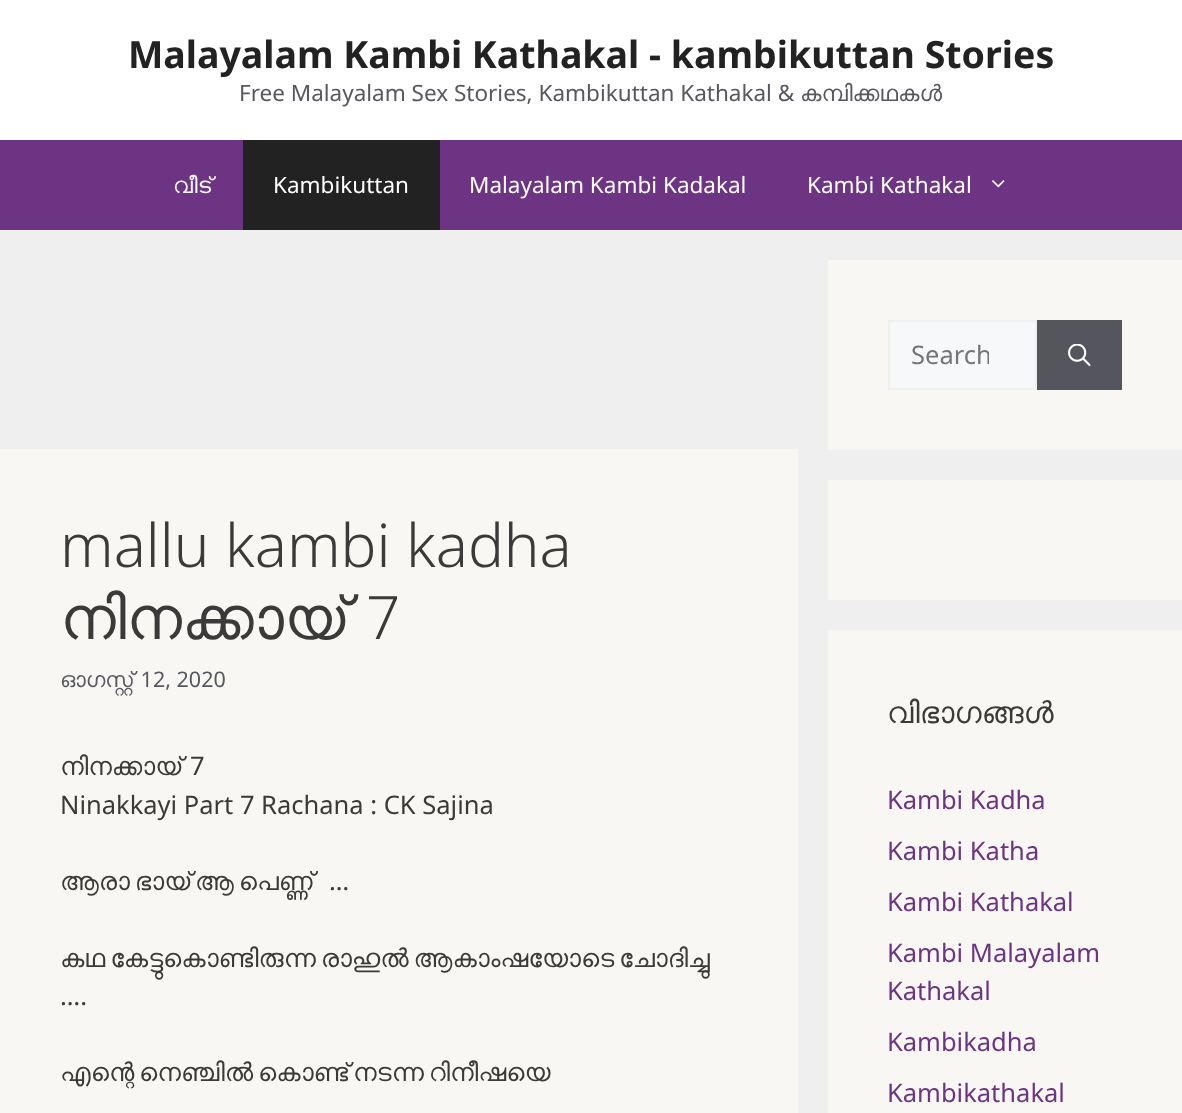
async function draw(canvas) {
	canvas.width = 1182;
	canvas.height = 1113;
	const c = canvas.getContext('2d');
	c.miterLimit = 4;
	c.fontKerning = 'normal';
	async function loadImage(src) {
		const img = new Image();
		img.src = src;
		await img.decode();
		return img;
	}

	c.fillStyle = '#efefef';
	c.fillRect(0, 0, 1182, 1113);
	c.fillStyle = '#fff';
	c.fillRect(0, 0, 1182, 140);
	c.font = 'bold 37.5px Noto Sans';
	c.fillStyle = '#222';
	c.fillText('Malayalam Kambi Kathakal - kambikuttan Stories', 128, 68);
	c.font = '22.5px Noto Sans';
	c.fillStyle = '#575760';
	c.fillText('Free Malayalam Sex Stories, Kambikuttan Kathakal &', 239, 101);
	c.font = '22.5px FreeSans';
	c.fillText('കമ്പിക്കഥകൾ', 800, 101);
	c.fillStyle = '#6c3483';
	c.fillRect(0, 140, 1182, 90);
	c.fillStyle = '#fff';
	c.fillText('വീട്', 173, 193);
	c.fillStyle = '#222';
	c.fillRect(243, 140, 197, 90);
	c.font = '22.5px Noto Sans';
	c.fillStyle = '#fff';
	for (const [text, x, y] of [
		['Kambikuttan', 273, 193],
		['Malayalam Kambi Kadakal', 469, 193],
		['Kambi Kathakal', 807, 193],
	]) {
		c.fillText(text, x, y);
	}
	c.drawImage(await loadImage('img1.png'), 992, 180, 13, 8);
	c.fillStyle = '#f9f7f3';
	c.fillRect(0, 449, 798, 664);
	c.font = '300 60px Noto Sans';
	c.fillStyle = '#3a3a3a';
	c.fillText('mallu kambi kadha', 60, 567);
	c.font = '60px FreeSans';
	c.fillText('നിനക്കായ്', 60, 639);
	c.font = '300 60px Noto Sans';
	c.fillText('7', 366, 639);
	c.font = '21.5px FreeSans';
	c.fillStyle = '#575760';
	c.fillText('ഓഗസ്റ്റ്', 60, 687);
	c.font = '21.5px Noto Sans';
	c.fillText('‌ 12, 2020', 135, 687);
	c.font = '25.5px FreeSans';
	c.fillStyle = '#3a3a3a';
	c.fillText('നിനക്കായ്', 60, 775);
	c.font = '25.5px Noto Sans';
	c.fillText('7', 190, 775);
	c.fillText('Ninakkayi Part 7 Rachana : CK Sajina', 60, 814);
	c.wordSpacing = '-1.5px';
	c.font = '25.5px FreeSans';
	c.fillText('ആരാ ഭായ് ആ പെണ്ണ്', 60, 890);
	c.wordSpacing = '0px';
	c.font = '25.5px Noto Sans';
	c.fillText('…', 329, 890);
	c.wordSpacing = '-1.5px';
	c.font = '25.5px FreeSans';
	c.fillText('കഥ കേട്ടുകൊണ്ടിരുന്ന രാഹുൽ ആകാംഷയോടെ ചോദിച്ചു', 60, 967);
	c.wordSpacing = '0px';
	c.font = '25.5px Noto Sans';
	c.fillText('….', 60, 1005);
	c.wordSpacing = '-1.5px';
	c.font = '25.5px FreeSans';
	c.fillText('എന്റെ നെഞ്ചിൽ കൊണ്ട് നടന്ന റിനീഷയെ', 60, 1081);
	c.fillStyle = '#f9f7f3';
	c.fillRect(828, 260, 354, 190);
	c.fillStyle = '#f7f8f9';
	c.beginPath();
	c.rect(889, 321, 147, 68);
	c.fill();
	c.strokeStyle = '#f0f0f0';
	c.lineWidth = 2;
	c.stroke();
	c.save();
	c.beginPath();
	c.rect(912, 338, 77, 34);
	c.clip();
	c.wordSpacing = '0px';
	c.font = '25.5px Noto Sans';
	c.fillStyle = '#757575';
	c.fillText('Search', 911, 364);
	c.restore();
	c.fillStyle = '#55555e';
	c.fillRect(1037, 320, 85, 70);
	c.drawImage(await loadImage('img2.png'), 1068, 344, 23, 22);
	c.fillStyle = '#f9f7f3';
	c.fillRect(828, 480, 354, 120);
	c.fillRect(828, 630, 354, 483);
	c.wordSpacing = '0px';
	c.font = '30px FreeSans';
	c.fillStyle = '#3a3a3a';
	c.fillText('വിഭാഗങ്ങൾ', 887, 723);
	c.font = '25.5px Noto Sans';
	c.fillStyle = '#6c3483';
	for (const [text, x, y] of [
		['Kambi Kadha', 887, 809],
		['Kambi Katha', 887, 860],
		['Kambi Kathakal', 887, 911],
		['Kambi Malayalam', 887, 962],
		['Kathakal', 887, 1000],
		['Kambikadha', 887, 1051],
		['Kambikathakal', 887, 1102],
	]) {
		c.fillText(text, x, y);
	}
}

draw(document.querySelector('canvas'));
